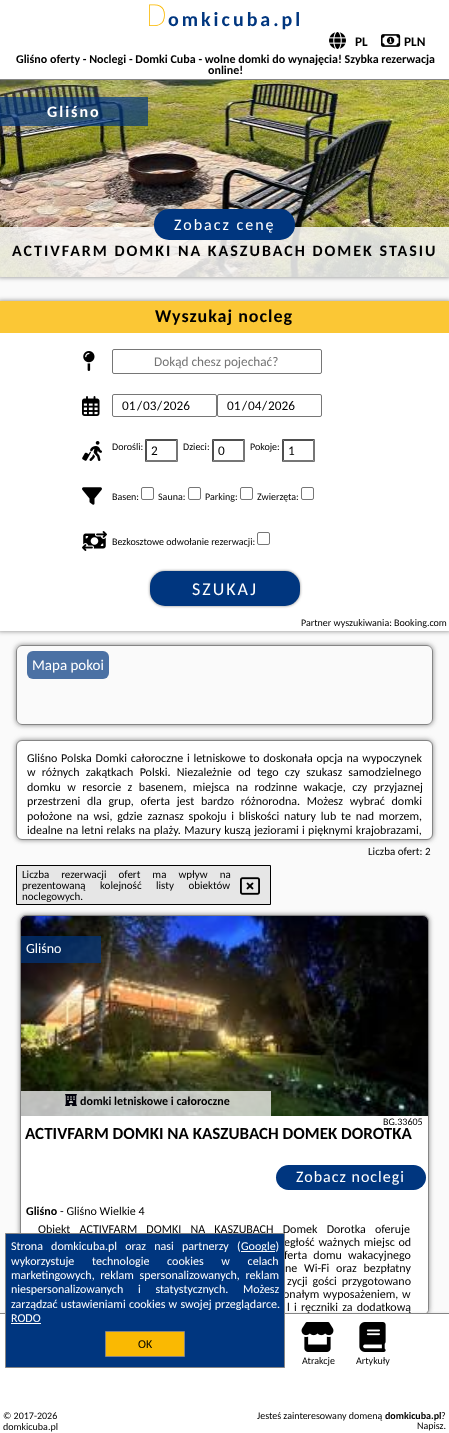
async function draw(canvas) {
	canvas.width = 449;
	canvas.height = 1433;
	const c = canvas.getContext('2d');
	c.miterLimit = 4;
	c.fontKerning = 'normal';
	async function loadImage(src) {
		const img = new Image();
		img.src = src;
		await img.decode();
		return img;
	}

	c.fillStyle = '#fafafa';
	c.fillRect(0, 0, 449, 1433);
	c.fillStyle = '#858585';
	c.filter = 'blur(2.5px)';
	c.beginPath();
	c.rect(-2, 77, 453, 200);
	c.fill();
	c.filter = 'none';
	c.drawImage(await loadImage('img3.png'), 0, 80, 449, 197);
	c.filter = 'blur(2.5px)';
	c.beginPath();
	c.rect(0, -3, 449, 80);
	c.fill();
	c.filter = 'none';
	c.fillStyle = '#fff';
	c.fillRect(0, 0, 449, 79);
	c.fillStyle = '#858585';
	c.fillRect(0, 79, 449, 1);
	c.letterSpacing = '3px';
	c.font = '100 30px Noto Sans';
	c.fillStyle = '#fab902';
	c.fillText('D', 146, 26);
	c.font = 'bold 20px Carlito';
	c.fillStyle = '#00367f';
	c.fillText('omkicuba.pl', 168, 26);
	c.drawImage(await loadImage('img1.png'), 329, 32, 17, 17);
	c.letterSpacing = '0px';
	c.font = 'bold 13.25px Carlito';
	c.fillStyle = '#000';
	c.fillText('PL', 355, 46);
	c.drawImage(await loadImage('img2.png'), 381, 34, 20, 13);
	c.fillText('PLN', 404, 46);
	c.font = 'bold 12px Carlito';
	c.fillText('Gliśno oferty - Noclegi - Domki Cuba - wolne domki do wynajęcia! Szybka rezerwacja', 16, 63);
	c.fillText('online!', 208, 74);
	c.fillStyle = '#00367fb3';
	c.fillRect(0, 97, 148, 29);
	c.letterSpacing = '2px';
	c.font = 'bold 16px Carlito';
	c.fillStyle = '#fff';
	c.fillText('Gliśno', 47, 117);
	c.fillStyle = '#fafafad9';
	c.fillRect(0, 227, 449, 50);
	c.fillStyle = '#00367f';
	c.beginPath();
	c.roundRect(154, 209, 141, 31, 15);
	c.fill();
	c.font = '16px Carlito';
	c.fillStyle = '#fff';
	c.fillText('Zobacz cenę', 174, 230);
	c.font = 'bold 16px Carlito';
	c.fillStyle = '#000';
	c.fillText('ACTIVFARM DOMKI NA KASZUBACH DOMEK STASIU', 12, 256);
	c.fillStyle = '#858585';
	c.filter = 'blur(2.5px)';
	c.beginPath();
	c.rect(-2, 301, 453, 330);
	c.fill();
	c.filter = 'none';
	c.fillStyle = '#fff';
	c.fillRect(0, 333, 449, 298);
	c.fillStyle = '#fbc735';
	c.fillRect(0, 301, 449, 32);
	c.letterSpacing = '1px';
	c.font = 'bold 18px Carlito';
	c.fillStyle = '#000';
	c.fillText('Wyszukaj nocleg', 155, 322);
	c.drawImage(await loadImage('img4.png'), 83, 351, 12, 20);
	c.beginPath();
	c.roundRect(112.5, 349.5, 209, 24, 1.5);
	c.strokeStyle = '#767676';
	c.stroke();
	c.letterSpacing = '0px';
	c.font = '13.25px Carlito';
	c.fillStyle = '#757575';
	c.fillText('Dokąd chesz pojechać?', 154, 366);
	c.drawImage(await loadImage('img5.png'), 82, 396, 18, 20);
	c.beginPath();
	c.roundRect(112.5, 394.5, 104, 22, 1.5);
	c.stroke();
	c.fillStyle = '#000';
	for (const [text, x, y] of [
		['01', 122, 410],
		['/', 137, 410],
		['03', 143, 410],
		['/', 157, 410],
		['2026', 163, 410],
	]) {
		c.fillText(text, x, y);
	}
	c.beginPath();
	c.roundRect(217.5, 394.5, 104, 22, 1.5);
	c.stroke();
	for (const [text, x, y] of [
		['01', 227, 410],
		['/', 242, 410],
		['04', 248, 410],
		['/', 262, 410],
		['2026', 268, 410],
	]) {
		c.fillText(text, x, y);
	}
	c.drawImage(await loadImage('img6.png'), 82, 441, 20, 20);
	c.font = '10px Carlito';
	c.fillText('Dorośli:', 112, 450);
	c.fillStyle = '#4f4f4f';
	c.beginPath();
	c.moveTo(145, 439);
	c.lineTo(178, 439);
	c.lineTo(176, 441);
	c.lineTo(147, 441);
	c.closePath();
	c.fill();
	c.fillStyle = '#767676';
	c.beginPath();
	c.moveTo(178, 439);
	c.lineTo(178, 462);
	c.lineTo(176, 460);
	c.lineTo(176, 441);
	c.closePath();
	c.fill();
	c.beginPath();
	c.moveTo(178, 462);
	c.lineTo(145, 462);
	c.lineTo(147, 460);
	c.lineTo(176, 460);
	c.closePath();
	c.fill();
	c.fillStyle = '#4f4f4f';
	c.beginPath();
	c.moveTo(145, 462);
	c.lineTo(145, 439);
	c.lineTo(147, 441);
	c.lineTo(147, 460);
	c.closePath();
	c.fill();
	c.font = '13.25px Carlito';
	c.fillStyle = '#000';
	c.fillText('2', 151, 455);
	c.font = '10px Carlito';
	c.fillText('Dzieci:', 183, 450);
	c.fillStyle = '#4f4f4f';
	c.beginPath();
	c.moveTo(212, 439);
	c.lineTo(245, 439);
	c.lineTo(243, 441);
	c.lineTo(214, 441);
	c.closePath();
	c.fill();
	c.fillStyle = '#767676';
	c.beginPath();
	c.moveTo(245, 439);
	c.lineTo(245, 462);
	c.lineTo(243, 460);
	c.lineTo(243, 441);
	c.closePath();
	c.fill();
	c.beginPath();
	c.moveTo(245, 462);
	c.lineTo(212, 462);
	c.lineTo(214, 460);
	c.lineTo(243, 460);
	c.closePath();
	c.fill();
	c.fillStyle = '#4f4f4f';
	c.beginPath();
	c.moveTo(212, 462);
	c.lineTo(212, 439);
	c.lineTo(214, 441);
	c.lineTo(214, 460);
	c.closePath();
	c.fill();
	c.font = '13.25px Carlito';
	c.fillStyle = '#000';
	c.fillText('0', 218, 455);
	c.font = '10px Carlito';
	c.fillText('Pokoje:', 250, 450);
	c.fillStyle = '#4f4f4f';
	c.beginPath();
	c.moveTo(282, 439);
	c.lineTo(315, 439);
	c.lineTo(313, 441);
	c.lineTo(284, 441);
	c.closePath();
	c.fill();
	c.fillStyle = '#767676';
	c.beginPath();
	c.moveTo(315, 439);
	c.lineTo(315, 462);
	c.lineTo(313, 460);
	c.lineTo(313, 441);
	c.closePath();
	c.fill();
	c.beginPath();
	c.moveTo(315, 462);
	c.lineTo(282, 462);
	c.lineTo(284, 460);
	c.lineTo(313, 460);
	c.closePath();
	c.fill();
	c.fillStyle = '#4f4f4f';
	c.beginPath();
	c.moveTo(282, 462);
	c.lineTo(282, 439);
	c.lineTo(284, 441);
	c.lineTo(284, 460);
	c.closePath();
	c.fill();
	c.font = '13.25px Carlito';
	c.fillStyle = '#000';
	c.fillText('1', 288, 455);
	c.drawImage(await loadImage('img7.png'), 82, 487, 20, 18);
	c.font = '10px Carlito';
	c.fillText('Basen:', 112, 500);
	c.beginPath();
	c.roundRect(141.5, 487.5, 12, 12, 1.5);
	c.stroke();
	c.fillText('Sauna:', 158, 500);
	c.beginPath();
	c.roundRect(188.5, 487.5, 12, 12, 1.5);
	c.stroke();
	c.fillText('Parking:', 205, 500);
	c.beginPath();
	c.roundRect(240.5, 487.5, 12, 12, 1.5);
	c.stroke();
	c.fillText('Zwierzęta:', 257, 500);
	c.beginPath();
	c.roundRect(301.5, 487.5, 12, 12, 1.5);
	c.stroke();
	c.drawImage(await loadImage('img8.png'), 82, 531, 25, 20);
	c.fillText('Bezkosztowe odwołanie rezerwacji:', 112, 545);
	c.beginPath();
	c.roundRect(257.5, 532.5, 12, 12, 1.5);
	c.stroke();
	c.fillStyle = '#858585';
	c.filter = 'blur(1.5px)';
	c.beginPath();
	c.roundRect(150, 571, 150, 35, 15);
	c.fill();
	c.filter = 'none';
	c.fillStyle = '#00367f';
	c.beginPath();
	c.roundRect(150, 571, 150, 35, 15);
	c.fill();
	c.letterSpacing = '2px';
	c.font = '18px Carlito';
	c.fillStyle = '#fff';
	c.fillText('SZUKAJ', 192, 595);
	c.letterSpacing = '0px';
	c.font = '10px Carlito';
	c.fillStyle = '#000';
	c.fillText('Partner wyszukiwania: Booking.com', 301, 626);
	c.save();
	c.beginPath();
	c.moveTo(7, 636);
	c.lineTo(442, 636);
	c.lineTo(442, 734);
	c.lineTo(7, 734);
	c.closePath();
	c.moveTo(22, 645);
	c.lineTo(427, 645);
	c.bezierCurveTo(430.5, 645, 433, 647.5, 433, 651);
	c.lineTo(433, 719);
	c.bezierCurveTo(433, 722.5, 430.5, 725, 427, 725);
	c.lineTo(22, 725);
	c.bezierCurveTo(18.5, 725, 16, 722.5, 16, 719);
	c.lineTo(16, 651);
	c.bezierCurveTo(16, 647.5, 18.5, 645, 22, 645);
	c.closePath();
	c.clip('evenodd');
	c.fillStyle = '#858585';
	c.filter = 'blur(2.5px)';
	c.beginPath();
	c.roundRect(16, 645, 417, 80, 6);
	c.fill();
	c.filter = 'none';
	c.restore();
	c.beginPath();
	c.roundRect(16.5, 645.5, 416, 79, 5.5);
	c.strokeStyle = '#858585';
	c.stroke();
	c.fillStyle = '#4b71a4';
	c.beginPath();
	c.roundRect(27, 651, 82, 28, 6);
	c.fill();
	c.font = '15px Carlito';
	c.fillStyle = '#fff';
	c.fillText('Mapa pokoi', 32, 670);
	c.fillStyle = '#858585';
	c.filter = 'blur(2.5px)';
	c.beginPath();
	c.roundRect(16, 740, 417, 100, 6);
	c.fill();
	c.filter = 'none';
	c.fillStyle = '#fff';
	c.beginPath();
	c.roundRect(16.5, 740.5, 416, 99, 5.5);
	c.fill();
	c.stroke();
	c.wordSpacing = '1px';
	c.font = '12px Carlito';
	c.fillStyle = '#000';
	c.fillText('Gliśno Polska Domki całoroczne i letniskowe to doskonała opcja na wypoczynek', 27, 762);
	c.wordSpacing = '3.5px';
	c.fillText('w różnych zakątkach Polski. Niezależnie od tego czy szukasz samodzielnego', 27, 776);
	c.wordSpacing = '3.75px';
	c.fillText('domku w resorcie z basenem, miejsca na rodzinne wakacje, czy przyjaznej', 27, 791);
	c.wordSpacing = '4px';
	c.fillText('przestrzeni dla grup, oferta jest bardzo różnorodna. Możesz wybrać domki', 27, 805);
	c.wordSpacing = '2.1px';
	c.fillText('położone na wsi, gdzie zaznasz spokoju i bliskości natury lub te nad morzem,', 27, 820);
	c.wordSpacing = '0.6px';
	c.fillText('idealne na letni relaks na plaży. Mazury kuszą jeziorami i pięknymi krajobrazami,', 27, 834);
	c.wordSpacing = '0px';
	c.font = '11px Carlito';
	c.fillText('Liczba ofert: 2', 368, 855);
	c.fillStyle = '#e6e6e6';
	c.beginPath();
	c.rect(16.5, 865.5, 254, 39);
	c.fill();
	c.strokeStyle = '#000';
	c.stroke();
	c.wordSpacing = '9.5px';
	c.fillStyle = '#000';
	c.fillText('Liczba rezerwacji ofert ma wpływ na', 22, 878);
	c.wordSpacing = '12px';
	c.fillText('prezentowaną kolejność listy obiektów', 22, 889);
	c.drawImage(await loadImage('img9.png'), 240, 877, 20, 18);
	c.wordSpacing = '0px';
	c.fillText('noclegowych.', 22, 900);
	c.fillStyle = '#858585';
	c.filter = 'blur(2.5px)';
	c.beginPath();
	c.roundRect(20, 915, 409, 400, 6);
	c.fill();
	c.filter = 'none';
	c.fillStyle = '#fff';
	c.beginPath();
	c.roundRect(20.5, 915.5, 408, 399, 5.5);
	c.fill();
	c.strokeStyle = '#858585';
	c.stroke();
	c.drawImage(await loadImage('img10.png'), 21, 916, 407, 200);
	c.fillStyle = '#00367fb3';
	c.fillRect(21, 936, 80, 27);
	c.font = '14px Carlito';
	c.fillStyle = '#fff';
	c.fillText('Gliśno', 26, 953);
	c.fillStyle = '#fafafabf';
	c.fillRect(21, 1091, 250, 25);
	c.drawImage(await loadImage('img11.png'), 65, 1094, 12, 12);
	c.font = 'bold 12px Carlito';
	c.fillStyle = '#000';
	c.fillText('domki letniskowe i całoroczne', 80, 1105);
	c.font = 'bold 17px Carlito';
	c.fillText('ACTIVFARM DOMKI NA KASZUBACH DOMEK DOROTKA', 25, 1139);
	c.fillStyle = '#00367f';
	c.beginPath();
	c.roundRect(276, 1165, 150, 25, 12.5);
	c.fill();
	c.letterSpacing = '1px';
	c.font = '16px Carlito';
	c.fillStyle = '#fff';
	c.fillText('Zobacz noclegi', 296, 1182);
	c.letterSpacing = '0px';
	c.font = '10px Carlito';
	c.fillStyle = '#000';
	c.fillText('BG.33605', 383, 1125);
	c.fillStyle = '#fff';
	c.beginPath();
	c.roundRect(21, 1194, 407, 120, [0, 0, 5, 5]);
	c.fill();
	c.font = 'bold 12px Carlito';
	c.fillStyle = '#000';
	c.fillText('Gliśno', 26, 1215);
	c.font = '12px Carlito';
	c.fillText('- Gliśno Wielkie 4', 60, 1215);
	c.wordSpacing = '6.5px';
	c.fillText('Obiekt ACTIVFARM DOMKI NA KASZUBACH Domek Dorotka oferuje', 38, 1233);
	c.wordSpacing = '1px';
	c.fillText('egłość ważnych miejsc od', 284, 1246);
	c.wordSpacing = '3.5px';
	c.fillText('ferta domu wakacyjnego', 284, 1259);
	c.wordSpacing = '4px';
	c.fillText('ne Wi-Fi oraz bezpłatny', 285, 1272);
	c.wordSpacing = '2.1px';
	c.fillText('zycji gości przygotowano', 287, 1285);
	c.wordSpacing = '1px';
	c.fillText('onałym wyposażeniem, w', 283, 1298);
	c.wordSpacing = '1.5px';
	c.fillText('l i ręczniki za dodatkową', 287, 1311);
	c.fillStyle = '#858585';
	c.filter = 'blur(2.5px)';
	c.beginPath();
	c.rect(0, 1316, 449, 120);
	c.fill();
	c.filter = 'none';
	c.fillStyle = '#fff';
	c.fillRect(0, 1314, 449, 119);
	c.fillStyle = '#858585';
	c.fillRect(0, 1313, 449, 1);
	c.fillStyle = '#00367f';
	c.beginPath();
	c.rect(5.5, 1233.5, 279, 134);
	c.fill();
	c.stroke();
	c.wordSpacing = '5.5px';
	c.fillStyle = '#fff';
	c.fillText('Strona domkicuba.pl oraz nasi partnerzy (', 11, 1250);
	c.fillRect(241, 1251, 34, 1);
	c.wordSpacing = '0px';
	c.fillText('Google)', 241, 1250);
	c.wordSpacing = '15px';
	c.fillText('wykorzystuje technologie cookies w celach', 11, 1265);
	c.wordSpacing = '3px';
	c.fillText('marketingowych, reklam spersonalizowanych, reklam', 11, 1279);
	c.wordSpacing = '12px';
	c.fillText('niespersonalizowanych i statystycznych. Możesz', 11, 1293);
	c.wordSpacing = '0.5px';
	c.fillText('zarządzać ustawieniami cookies w swojej przeglądarce.', 11, 1308);
	c.wordSpacing = '0px';
	c.fillText('RODO', 11, 1322);
	c.fillRect(11, 1323, 30, 1);
	c.fillStyle = '#fab902';
	c.beginPath();
	c.rect(105.5, 1331.5, 79, 25);
	c.fill();
	c.stroke();
	c.fillStyle = '#000';
	c.fillText('OK', 138, 1348);
	c.drawImage(await loadImage('img12.png'), 301, 1322, 33, 30);
	c.font = '10px Carlito';
	c.fillText('Atrakcje', 302, 1364);
	c.drawImage(await loadImage('img13.png'), 359, 1322, 27, 30);
	for (const [text, x, y] of [
		['Artykuły', 356, 1364],
		['© 2017-2026', 3, 1419],
		['domkicuba.pl', 3, 1430],
		['Jesteś zainteresowany domeną', 257, 1419],
	]) {
		c.fillText(text, x, y);
	}
	c.font = 'bold 10px Carlito';
	c.fillText('domkicuba.pl', 385, 1419);
	c.font = '10px Carlito';
	c.fillText('?', 441, 1419);
	c.fillText('Napisz.', 417, 1429);
}

draw(document.querySelector('canvas'));
